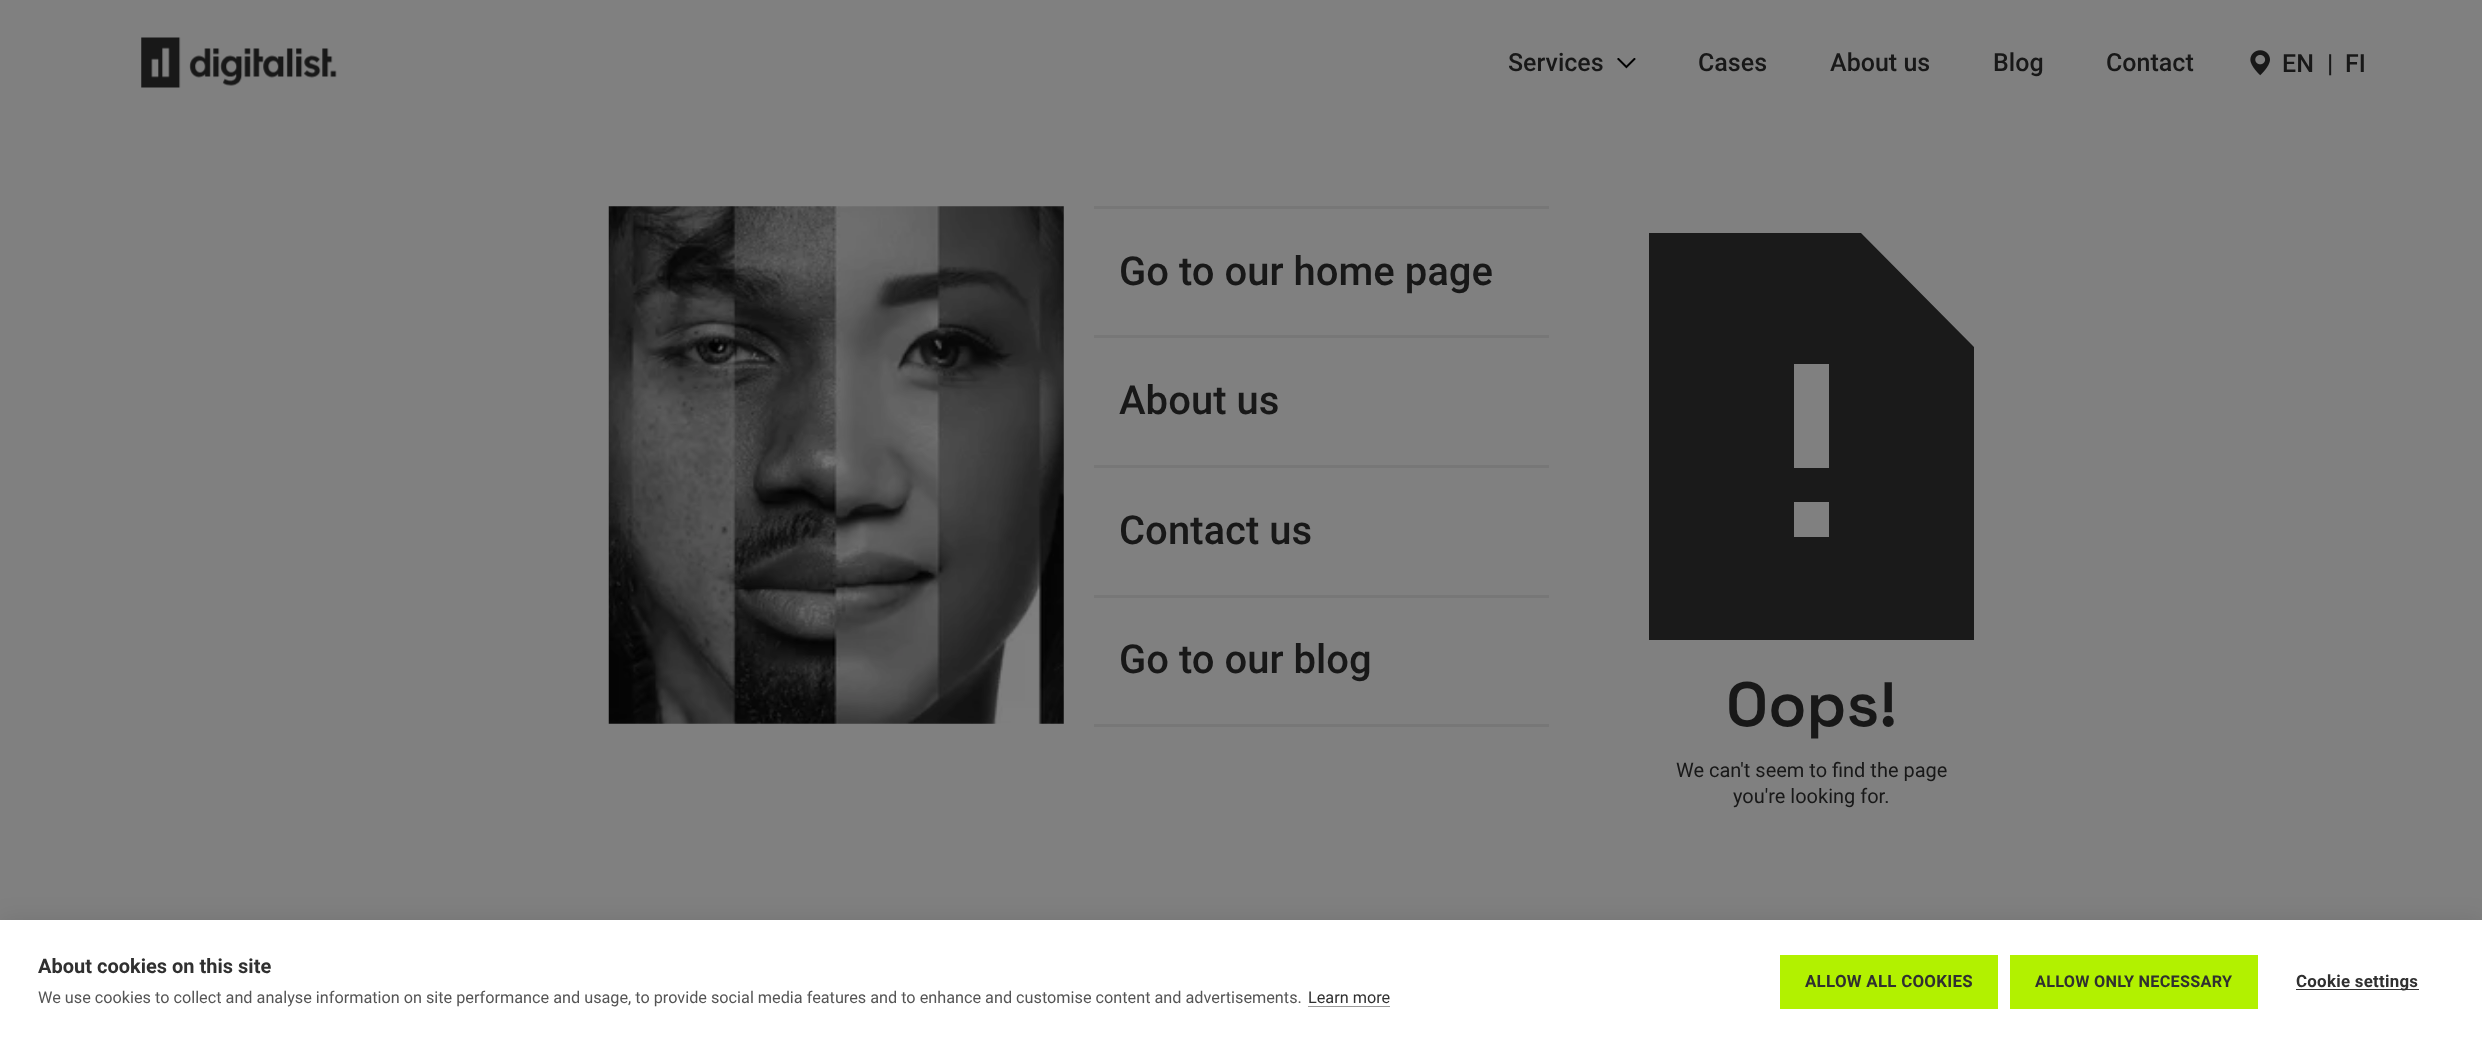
async function draw(canvas) {
	canvas.width = 2482;
	canvas.height = 1042;
	const c = canvas.getContext('2d');
	c.miterLimit = 4;
	c.fontKerning = 'normal';
	async function loadImage(src) {
		const img = new Image();
		img.src = src;
		await img.decode();
		return img;
	}

	c.fillStyle = '#808080';
	c.fillRect(0, 0, 2482, 1042);
	c.drawImage(await loadImage('img1.png'), 141, 37, 196, 51);
	c.font = '500 25px Roboto';
	c.fillStyle = '#181818';
	c.fillText('Services', 1508, 71);
	c.drawImage(await loadImage('img2.png'), 1617, 58, 19, 11);
	for (const [text, x, y] of [
		['Cases', 1698, 71],
		['About us', 1830, 71],
		['Blog', 1993, 71],
		['Contact', 2106, 71],
	]) {
		c.fillText(text, x, y);
	}
	c.drawImage(await loadImage('img3.png'), 2250, 50, 20, 26);
	for (const [text, x, y] of [
		['EN', 2282, 72],
		['|', 2327, 72],
		['FI', 2345, 72],
	]) {
		c.fillText(text, x, y);
	}
	c.drawImage(await loadImage('img4.png'), 608, 206, 456, 518);
	c.fillStyle = '#777';
	c.fillRect(1094, 206, 455, 3);
	c.fillRect(1094, 335, 455, 3);
	c.font = '500 40px Roboto';
	c.fillStyle = '#181818';
	c.fillText('Go to our home page', 1119, 285);
	c.fillStyle = '#777';
	c.fillRect(1094, 465, 455, 3);
	c.fillStyle = '#181818';
	c.fillText('About us', 1119, 414);
	c.fillStyle = '#777';
	c.fillRect(1094, 595, 455, 3);
	c.fillStyle = '#181818';
	c.fillText('Contact us', 1119, 544);
	c.fillStyle = '#777';
	c.fillRect(1094, 724, 455, 3);
	c.fillStyle = '#181818';
	c.fillText('Go to our blog', 1119, 673);
	c.save();
	c.beginPath();
	c.rect(1649, 233, 325, 407);
	c.clip();
	c.fillStyle = '#1a1a1a';
	c.beginPath();
	c.moveTo(1649, 232);
	c.lineTo(1860, 232);
	c.lineTo(1974, 347);
	c.lineTo(1974, 640);
	c.lineTo(1649, 640);
	c.closePath();
	c.moveTo(1794, 364);
	c.lineTo(1829, 364);
	c.lineTo(1829, 468);
	c.lineTo(1794, 468);
	c.closePath();
	c.moveTo(1794, 502);
	c.lineTo(1829, 502);
	c.lineTo(1829, 537);
	c.lineTo(1794, 537);
	c.closePath();
	c.fill('evenodd');
	c.restore();
	c.font = '600 62.5px Space Grotesk';
	c.fillText('Oops!', 1726, 726);
	c.font = '20px Roboto';
	c.fillText('We can\'t seem to find the page', 1676, 777);
	c.fillText('you\'re looking for.', 1733, 803);
	c.fillStyle = '#0000001a';
	c.filter = 'blur(12.5px)';
	c.beginPath();
	c.rect(0, 920, 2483, 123);
	c.fill();
	c.filter = 'none';
	c.fillStyle = '#fff';
	c.fillRect(0, 920, 2482, 122);
	c.font = 'bold 20px Roboto';
	c.fillStyle = '#303030';
	c.fillText('About cookies on this site', 38, 973);
	c.font = '16.25px Roboto';
	c.fillStyle = '#555';
	c.fillText('We use cookies to collect and analyse information on site performance and usage, to provide social media features and to enhance and customise content and advertisements.', 38, 1003);
	c.fillStyle = '#303030';
	c.fillText('Learn more', 1308, 1003);
	c.fillStyle = '#999';
	c.fillRect(1308, 1006, 82, 1);
	c.fillStyle = '#b2f100';
	c.fillRect(1780, 955, 218, 54);
	c.letterSpacing = '0.25px';
	c.font = 'bold 16.9px Roboto';
	c.fillStyle = '#303030';
	c.fillText('ALLOW ALL COOKIES', 1805, 987);
	c.fillStyle = '#b2f100';
	c.fillRect(2010, 955, 248, 54);
	c.font = 'bold 16.25px Roboto';
	c.fillStyle = '#303030';
	c.fillText('ALLOW ONLY NECESSARY', 2035, 987);
	c.fillStyle = '#333';
	c.fillRect(2296, 989, 123, 1);
	c.font = 'bold 16.9px Roboto';
	c.fillStyle = '#303030';
	c.fillText('Cookie settings', 2296, 987);
}

draw(document.querySelector('canvas'));
